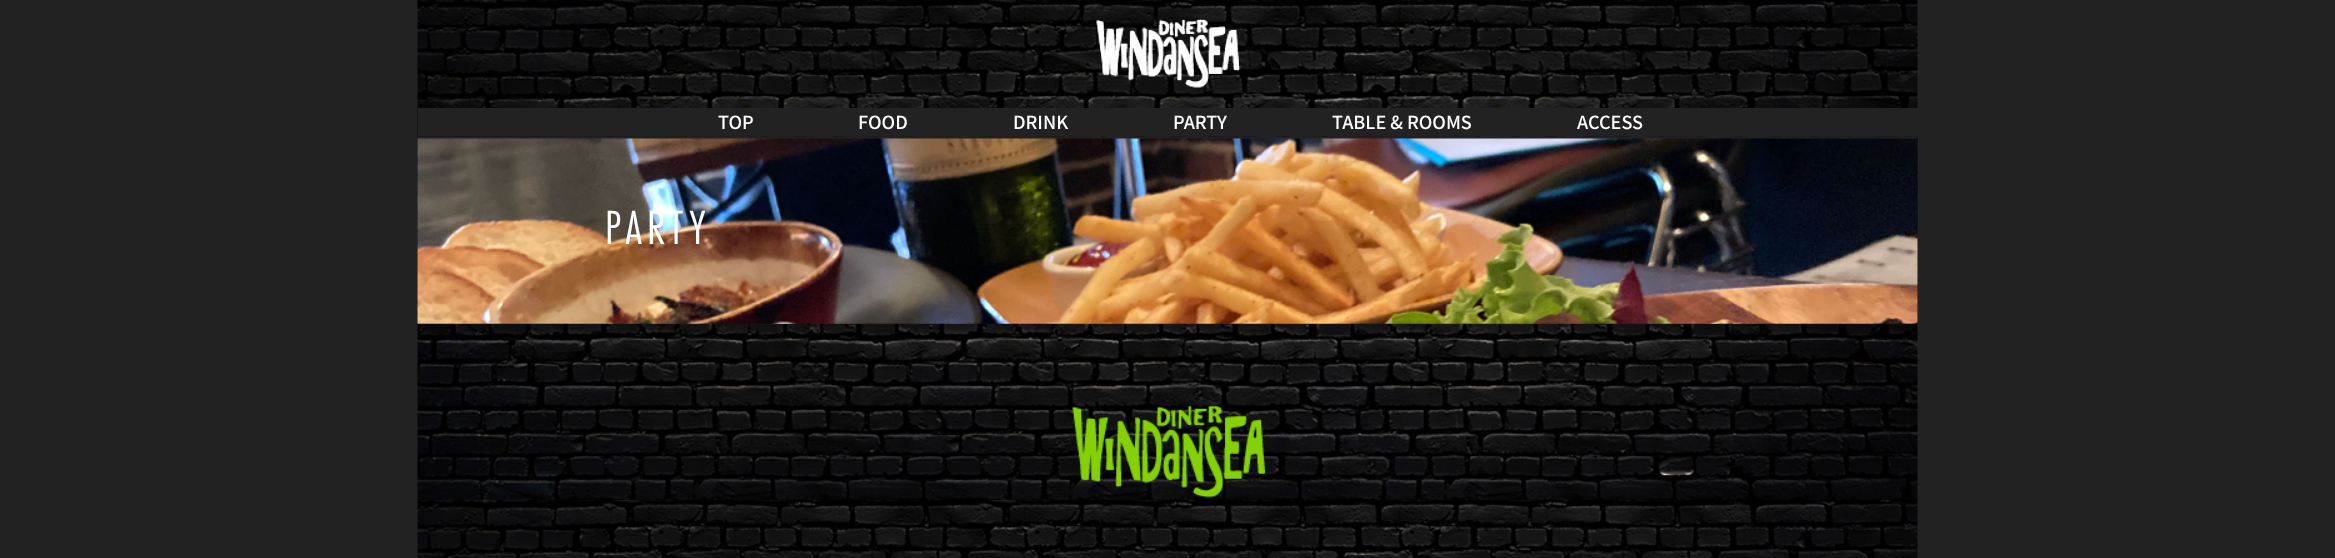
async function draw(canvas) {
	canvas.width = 2335;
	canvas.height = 558;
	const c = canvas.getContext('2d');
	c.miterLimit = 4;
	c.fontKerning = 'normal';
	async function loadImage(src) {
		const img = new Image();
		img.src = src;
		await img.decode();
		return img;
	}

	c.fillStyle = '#222';
	c.fillRect(0, 0, 2335, 558);
	c.drawImage(await loadImage('img1.png'), 417, 0, 1501, 558);
	c.drawImage(await loadImage('img2.png'), 1096, 18, 145, 70);
	c.drawImage(await loadImage('img3.png'), 1096, 18, 145, 70);
	c.fillRect(418, 108, 1500, 28);
	c.font = '500 18px Noto Sans JP';
	c.fillStyle = '#fff';
	for (const [text, x, y] of [
		['TOP', 718, 129],
		['FOOD', 858, 129],
		['DRINK', 1013, 129],
		['PARTY', 1173, 129],
		['TABLE & ROOMS', 1332, 129],
		['ACCESS', 1577, 129],
	]) {
		c.fillText(text, x, y);
	}
	c.drawImage(await loadImage('img4.png'), 417, 136, 1501, 188);
	c.letterSpacing = '5px';
	c.font = '50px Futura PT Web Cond';
	c.fillText('PARTY', 605, 244);
	c.drawImage(await loadImage('img5.png'), 1072, 405, 194, 93);
}

draw(document.querySelector('canvas'));
